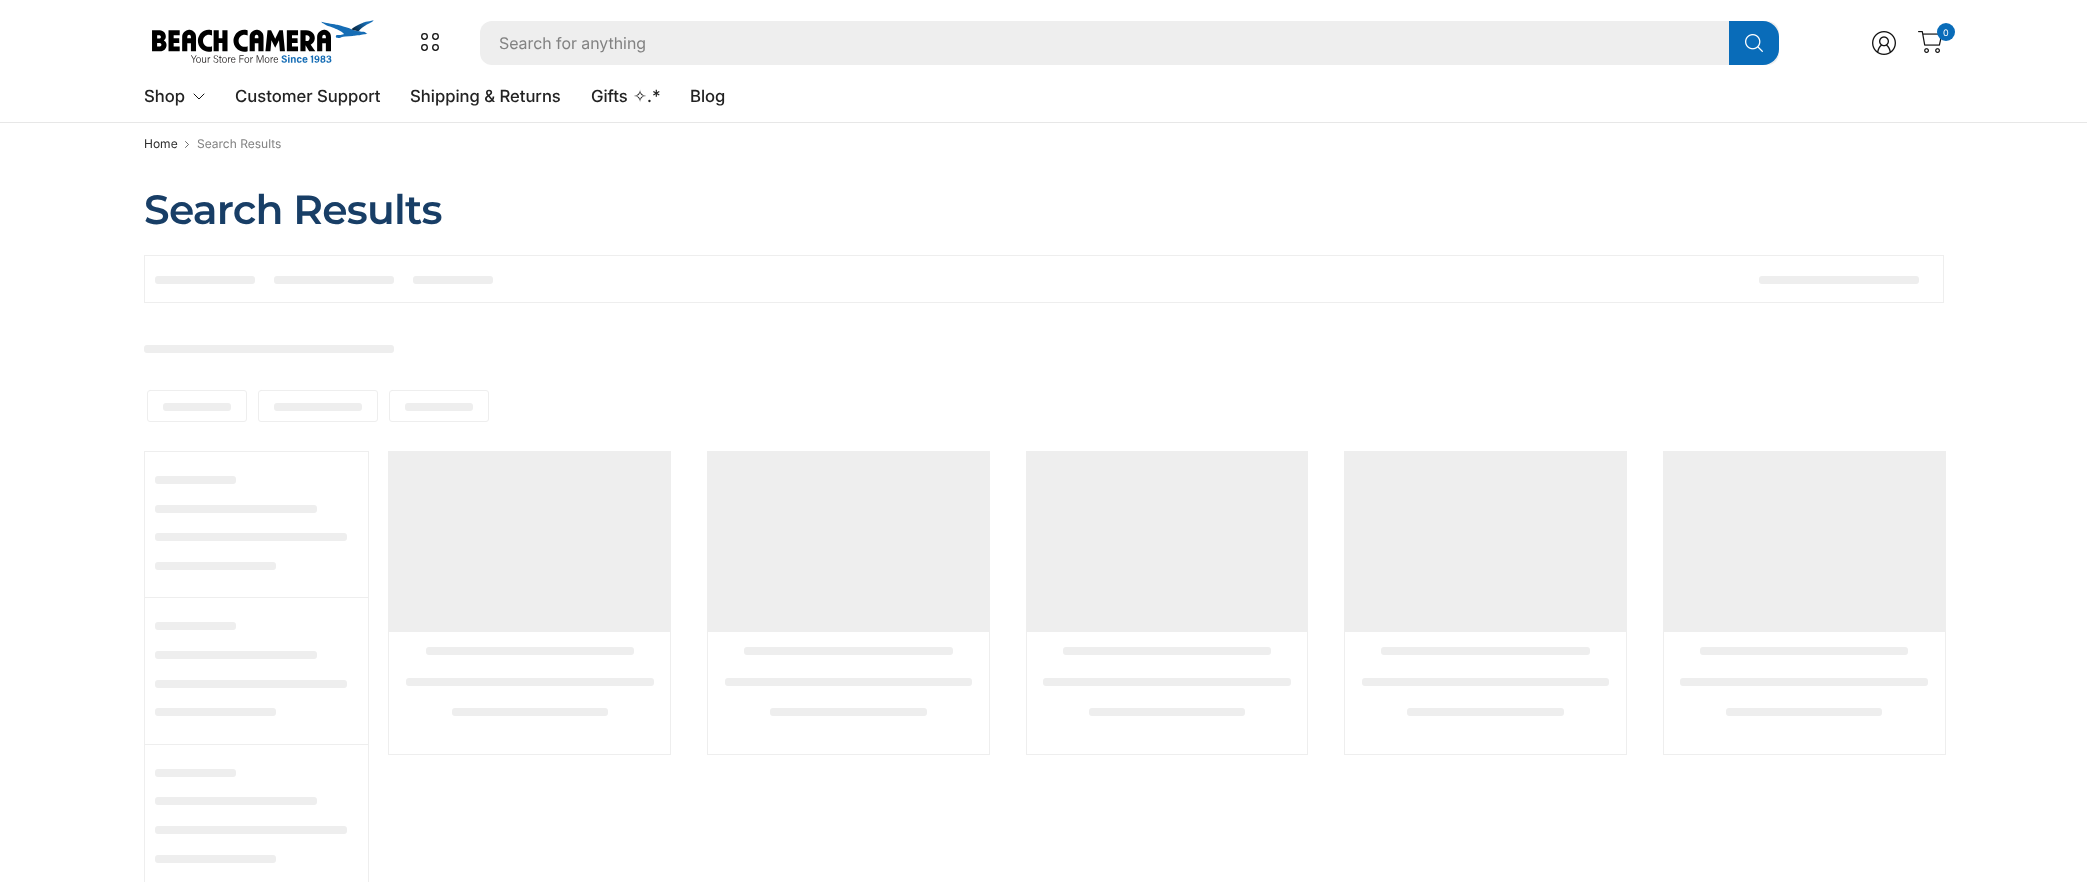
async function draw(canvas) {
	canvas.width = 2087;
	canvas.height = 882;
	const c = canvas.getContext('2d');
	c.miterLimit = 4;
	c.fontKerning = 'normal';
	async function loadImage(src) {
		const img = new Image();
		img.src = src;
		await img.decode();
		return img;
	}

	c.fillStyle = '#fff';
	c.fillRect(0, 0, 2087, 882);
	c.drawImage(await loadImage('img1.png'), 152, 20, 222, 43);
	c.beginPath();
	c.arc(424.5, 36.5, 2.8, 0, 2 * Math.PI);
	c.strokeStyle = '#121212';
	c.lineWidth = 1.3;
	c.stroke();
	c.beginPath();
	c.arc(435.5, 36.5, 2.8, 0, 2 * Math.PI);
	c.stroke();
	c.beginPath();
	c.arc(424.5, 47.5, 2.8, 0, 2 * Math.PI);
	c.stroke();
	c.beginPath();
	c.arc(435.5, 47.5, 2.8, 0, 2 * Math.PI);
	c.stroke();
	c.fillStyle = '#eee';
	c.beginPath();
	c.roundRect(480, 21, 1299, 44, 12);
	c.fill();
	c.font = '16px "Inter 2"';
	c.fillStyle = '#828282';
	c.fillText('Search for anything', 499, 49);
	c.fillStyle = '#096cb9';
	c.beginPath();
	c.roundRect(1729, 21, 50, 44, [0, 16, 16, 0]);
	c.fill();
	c.drawImage(await loadImage('img2.png'), 1745, 34, 18, 18);
	c.drawImage(await loadImage('img3.png'), 1872, 31, 24, 24);
	c.drawImage(await loadImage('img4.png'), 1918, 31, 24, 22);
	c.beginPath();
	c.arc(1946, 32, 9, 0, 2 * Math.PI);
	c.fill();
	c.font = '9px Inter';
	c.fillStyle = '#fff';
	c.fillText('0', 1943, 36);
	c.font = '500 16.75px Inter';
	c.fillStyle = '#232323';
	c.fillText('Shop', 144, 102);
	c.beginPath();
	c.moveTo(204, 94);
	c.lineTo(199, 99);
	c.lineTo(194, 94);
	c.lineWidth = 1;
	c.lineCap = 'round';
	c.lineJoin = 'round';
	c.stroke();
	for (const [text, x, y] of [
		['Customer Support', 235, 102],
		['Shipping & Returns', 410, 102],
		['Gifts', 591, 102],
	]) {
		c.fillText(text, x, y);
	}
	c.font = '16.75px DejaVu Sans';
	c.fillText('✧', 633, 102);
	c.font = '500 16.75px Inter';
	c.fillText('.*', 647, 102);
	c.fillText('Blog', 690, 102);
	c.fillStyle = '#e7e7e7';
	c.fillRect(0, 122, 2087, 1);
	c.font = '12px Inter';
	c.fillStyle = '#2e2e2e';
	c.fillText('Home', 144, 148);
	c.beginPath();
	c.moveTo(185.5, 141.5);
	c.lineTo(188.5, 144.5);
	c.lineTo(185.5, 147.5);
	c.strokeStyle = '#2e2e2e';
	c.lineWidth = 0.7;
	c.stroke();
	c.fillStyle = '#828282';
	c.fillText('Search Results', 197, 148);
	c.letterSpacing = '-0.75px';
	c.font = '600 40.75px Montserrat';
	c.fillStyle = '#183e66';
	c.fillText('Search Results', 144, 224);
	c.strokeStyle = '#eee';
	c.lineWidth = 1;
	c.lineJoin = 'miter';
	c.strokeRect(144.5, 255.5, 1799, 47);
	c.fillStyle = '#eee';
	c.beginPath();
	c.roundRect(155, 276, 100, 8, 3);
	c.fill();
	c.beginPath();
	c.roundRect(274, 276, 120, 8, 3);
	c.fill();
	c.beginPath();
	c.roundRect(413, 276, 80, 8, 3);
	c.fill();
	c.beginPath();
	c.roundRect(1759, 276, 160, 8, 3);
	c.fill();
	c.beginPath();
	c.roundRect(144, 345, 250, 8, 3);
	c.fill();
	c.beginPath();
	c.roundRect(147.5, 390.5, 99, 31, 2.5);
	c.stroke();
	c.beginPath();
	c.roundRect(163, 403, 68, 8, 3);
	c.fill();
	c.beginPath();
	c.roundRect(258.5, 390.5, 119, 31, 2.5);
	c.stroke();
	c.beginPath();
	c.roundRect(274, 403, 88, 8, 3);
	c.fill();
	c.beginPath();
	c.roundRect(389.5, 390.5, 99, 31, 2.5);
	c.stroke();
	c.beginPath();
	c.roundRect(405, 403, 68, 8, 3);
	c.fill();
	for (const [x, y, w, h, color] of [
		[144, 451, 225, 1, '#eee'],
		[368, 451, 1, 146, '#eee'],
		[144, 451, 1, 146, '#eee'],
	]) {
		c.fillStyle = color;
		c.fillRect(x, y, w, h);
	}
	c.beginPath();
	c.roundRect(155, 476, 81, 8, 3);
	c.fill();
	c.beginPath();
	c.roundRect(155, 505, 162, 8, 3);
	c.fill();
	c.beginPath();
	c.roundRect(155, 533, 192, 8, 3);
	c.fill();
	c.beginPath();
	c.roundRect(155, 562, 121, 8, 3);
	c.fill();
	for (const [x, y, w, h, color] of [
		[144, 597, 225, 1, '#eee'],
		[368, 597, 1, 147, '#eee'],
		[144, 597, 1, 147, '#eee'],
	]) {
		c.fillStyle = color;
		c.fillRect(x, y, w, h);
	}
	c.beginPath();
	c.roundRect(155, 622, 81, 8, 3);
	c.fill();
	c.beginPath();
	c.roundRect(155, 651, 162, 8, 3);
	c.fill();
	c.beginPath();
	c.roundRect(155, 680, 192, 8, 3);
	c.fill();
	c.beginPath();
	c.roundRect(155, 708, 121, 8, 3);
	c.fill();
	c.strokeRect(144.5, 744.5, 224, 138);
	c.beginPath();
	c.roundRect(155, 769, 81, 8, 3);
	c.fill();
	c.beginPath();
	c.roundRect(155, 797, 162, 8, 3);
	c.fill();
	c.beginPath();
	c.roundRect(155, 826, 192, 8, 3);
	c.fill();
	c.beginPath();
	c.roundRect(155, 855, 121, 8, 3);
	c.fill();
	c.strokeRect(388.5, 451.5, 282, 303);
	c.fillRect(389, 452, 281, 180);
	c.beginPath();
	c.roundRect(426, 647, 208, 8, 3);
	c.fill();
	c.beginPath();
	c.roundRect(406, 678, 248, 8, 3);
	c.fill();
	c.beginPath();
	c.roundRect(452, 708, 156, 8, 3);
	c.fill();
	c.strokeRect(707.5, 451.5, 282, 303);
	c.fillRect(708, 452, 281, 180);
	c.beginPath();
	c.roundRect(744, 647, 209, 8, 3);
	c.fill();
	c.beginPath();
	c.roundRect(725, 678, 247, 8, 3);
	c.fill();
	c.beginPath();
	c.roundRect(770, 708, 157, 8, 3);
	c.fill();
	c.strokeRect(1026.5, 451.5, 281, 303);
	c.fillRect(1027, 452, 280, 180);
	c.beginPath();
	c.roundRect(1063, 647, 208, 8, 3);
	c.fill();
	c.beginPath();
	c.roundRect(1043, 678, 248, 8, 3);
	c.fill();
	c.beginPath();
	c.roundRect(1089, 708, 156, 8, 3);
	c.fill();
	c.strokeRect(1344.5, 451.5, 282, 303);
	c.fillRect(1345, 452, 281, 180);
	c.beginPath();
	c.roundRect(1381, 647, 209, 8, 3);
	c.fill();
	c.beginPath();
	c.roundRect(1362, 678, 247, 8, 3);
	c.fill();
	c.beginPath();
	c.roundRect(1407, 708, 157, 8, 3);
	c.fill();
	c.strokeRect(1663.5, 451.5, 282, 303);
	c.fillRect(1664, 452, 281, 180);
	c.beginPath();
	c.roundRect(1700, 647, 208, 8, 3);
	c.fill();
	c.beginPath();
	c.roundRect(1680, 678, 248, 8, 3);
	c.fill();
	c.beginPath();
	c.roundRect(1726, 708, 156, 8, 3);
	c.fill();
}

draw(document.querySelector('canvas'));
